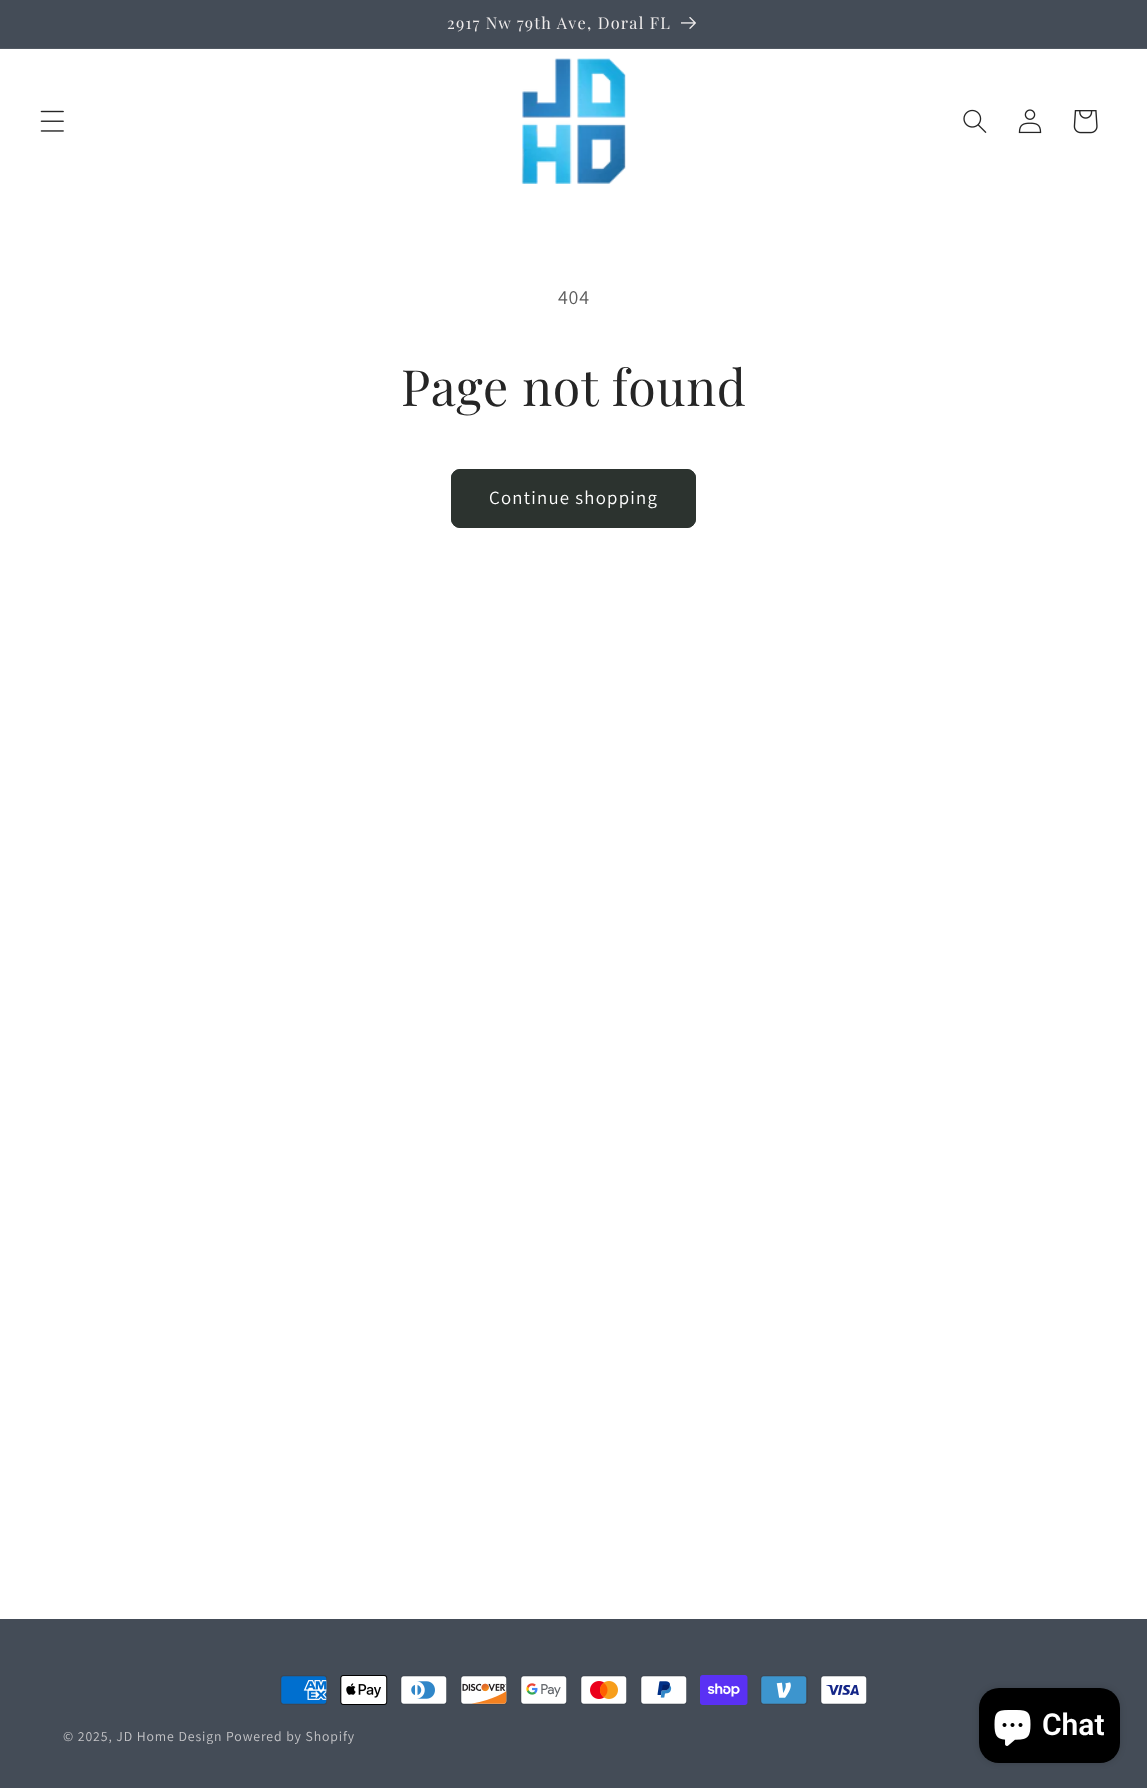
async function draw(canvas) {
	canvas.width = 1147;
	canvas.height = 1788;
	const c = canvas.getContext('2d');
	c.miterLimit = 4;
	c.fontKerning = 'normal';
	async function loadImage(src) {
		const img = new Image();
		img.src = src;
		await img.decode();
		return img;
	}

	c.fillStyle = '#fff';
	c.fillRect(0, 0, 1147, 1788);
	c.fillStyle = '#444c57';
	c.fillRect(0, 0, 1147, 48);
	c.fillStyle = '#525963';
	c.fillRect(0, 48, 1147, 1);
	c.letterSpacing = '1.25px';
	c.font = '16.25px Playfair Display';
	c.fillStyle = '#efecec';
	c.fillText('2917 Nw 79th Ave, Doral FL', 447, 29);
	c.drawImage(await loadImage('img1.png'), 681, 17, 15, 12);
	c.drawImage(await loadImage('img2.png'), 40, 110, 24, 22);
	c.drawImage(await loadImage('img3.png'), 521, 58, 105, 126);
	c.drawImage(await loadImage('img4.png'), 963, 109, 24, 24);
	c.drawImage(await loadImage('img5.png'), 1018, 109, 24, 25);
	c.drawImage(await loadImage('img6.png'), 1073, 110, 25, 24);
	c.letterSpacing = '0.75px';
	c.font = '20px Assistant';
	c.fillStyle = '#5c5c5c';
	c.fillText('404', 558, 304);
	c.font = '50px Playfair Display';
	c.fillStyle = '#252525';
	c.fillText('Page not found', 401, 406);
	c.fillStyle = '#2c332f';
	c.beginPath();
	c.roundRect(451, 469, 245, 59, 9);
	c.fill();
	c.beginPath();
	c.roundRect(451.5, 469.5, 244, 58, 8.5);
	c.strokeStyle = '#2c332f';
	c.stroke();
	c.letterSpacing = '1.25px';
	c.font = '18.75px Assistant';
	c.fillStyle = '#fff';
	c.fillText('Continue shopping', 489, 504);
	c.fillStyle = '#444c57';
	c.fillRect(0, 1619, 1147, 169);
	c.fillStyle = '#00000026';
	c.filter = 'blur(3px)';
	c.beginPath();
	c.roundRect(979, 1688, 141, 75, 20);
	c.fill();
	c.filter = 'none';
	c.fillStyle = '#000';
	c.beginPath();
	c.roundRect(979, 1688, 141, 75, 20);
	c.fill();
	c.drawImage(await loadImage('img7.png'), 994, 1710, 37, 36);
	c.letterSpacing = '0px';
	c.font = '600 30px Roboto';
	c.fillStyle = '#fff';
	c.fillText('Chat', 1042, 1735);
	c.drawImage(await loadImage('img8.png'), 280, 1675, 47, 30);
	c.drawImage(await loadImage('img9.png'), 340, 1675, 48, 30);
	c.drawImage(await loadImage('img10.png'), 400, 1675, 47, 30);
	c.drawImage(await loadImage('img11.png'), 460, 1675, 47, 30);
	c.drawImage(await loadImage('img12.png'), 520, 1675, 47, 30);
	c.drawImage(await loadImage('img13.png'), 580, 1675, 47, 30);
	c.drawImage(await loadImage('img14.png'), 640, 1675, 47, 30);
	c.drawImage(await loadImage('img15.png'), 700, 1675, 48, 30);
	c.drawImage(await loadImage('img16.png'), 760, 1675, 48, 30);
	c.drawImage(await loadImage('img17.png'), 820, 1675, 47, 30);
	c.letterSpacing = '0.9px';
	c.font = '13.75px Assistant';
	c.fillStyle = '#c4c4c7';
	c.fillText('© 2025, JD Home Design Powered by Shopify', 63, 1741);
}

draw(document.querySelector('canvas'));
